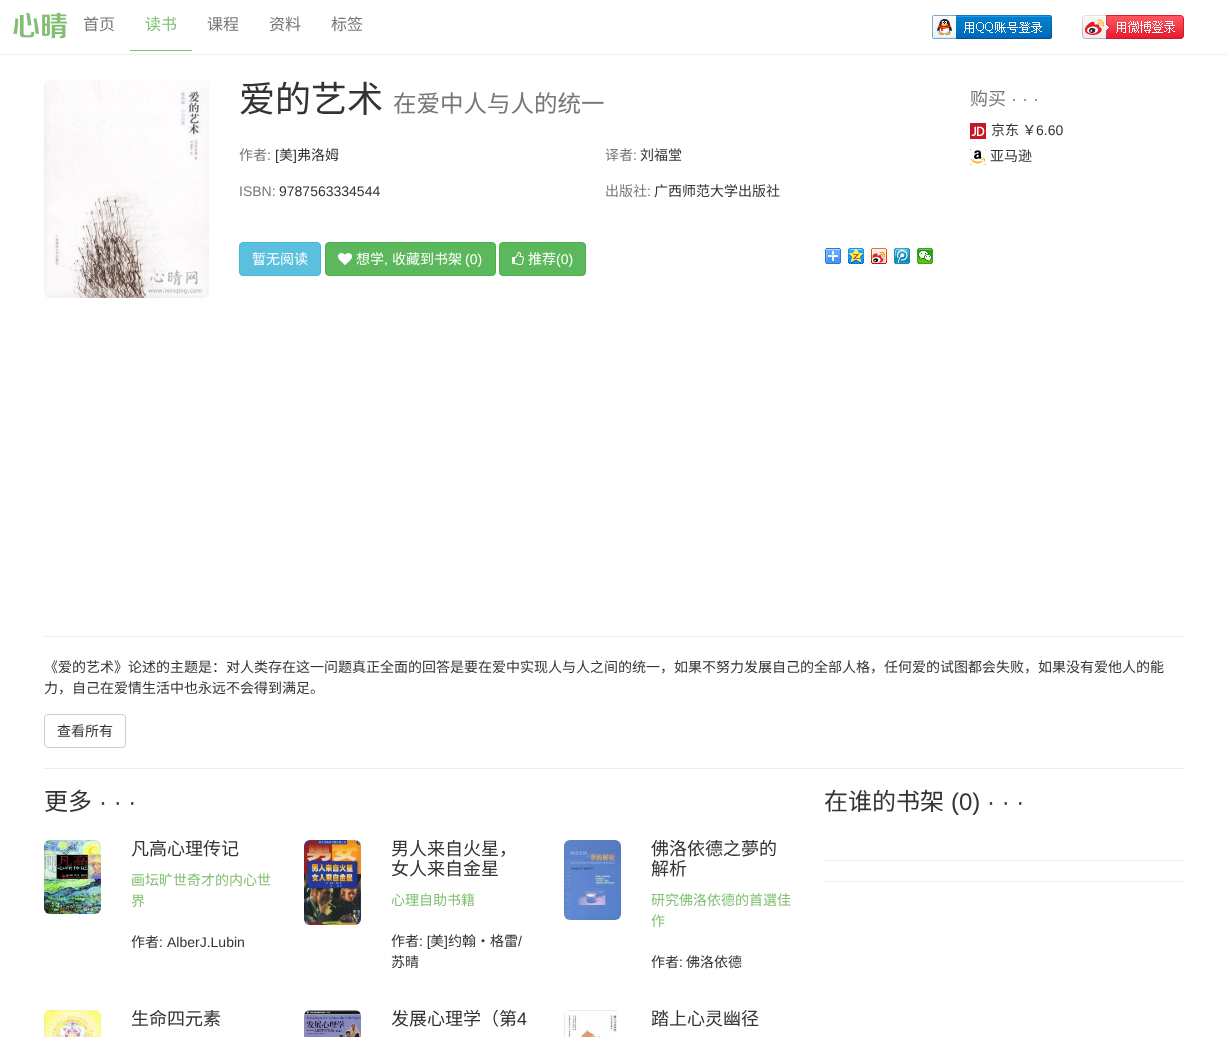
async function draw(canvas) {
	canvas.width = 1228;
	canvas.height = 1037;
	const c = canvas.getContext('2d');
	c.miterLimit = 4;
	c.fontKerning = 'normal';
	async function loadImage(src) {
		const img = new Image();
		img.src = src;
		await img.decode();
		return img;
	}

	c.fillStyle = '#fff';
	c.fillRect(0, 0, 1228, 1037);
	c.fillStyle = '#f0f0f0';
	c.fillRect(0, 54, 1228, 1);
	c.drawImage(await loadImage('img1.png'), 13, 12, 54, 27);
	c.font = '16px Noto Sans CJK SC';
	c.fillStyle = '#777';
	c.fillText('首页', 83, 30);
	c.fillStyle = '#83bf73';
	c.fillRect(130, 50, 62, 1);
	c.fillText('读书', 145, 30);
	c.fillStyle = '#777';
	for (const [text, x, y] of [
		['课程', 207, 30],
		['资料', 269, 30],
		['标签', 331, 30],
	]) {
		c.fillText(text, x, y);
	}
	c.drawImage(await loadImage('img2.png'), 932, 15, 120, 24);
	c.drawImage(await loadImage('img3.png'), 1082, 15, 102, 24);
	c.drawImage(await loadImage('img4.png'), 44, 80, 165, 218);
	c.font = '36px Noto Sans CJK SC';
	c.fillStyle = '#333';
	c.fillText('爱的艺术', 239, 112);
	c.font = '23.5px Noto Sans CJK SC';
	c.fillStyle = '#777';
	c.fillText('在爱中人与人的统一', 393, 112);
	c.font = '14px Noto Sans CJK SC';
	c.fillText('作者', 239, 160);
	c.font = '14px Liberation Sans';
	c.fillText(':', 267, 160);
	c.fillStyle = '#333';
	c.fillText('[', 275, 160);
	c.font = '14px Noto Sans CJK SC';
	c.fillText('美', 279, 160);
	c.font = '14px Liberation Sans';
	c.fillText(']', 293, 160);
	c.font = '14px Noto Sans CJK SC';
	c.fillText('弗洛姆', 297, 160);
	c.fillStyle = '#777';
	c.fillText('译者', 605, 160);
	c.font = '14px Liberation Sans';
	c.fillText(':', 633, 160);
	c.font = '14px Noto Sans CJK SC';
	c.fillStyle = '#333';
	c.fillText('刘福堂', 640, 160);
	c.font = '14px Liberation Sans';
	c.fillStyle = '#777';
	c.fillText('ISBN:', 239, 196);
	c.fillStyle = '#333';
	c.fillText('9787563334544', 279, 196);
	c.font = '14px Noto Sans CJK SC';
	c.fillStyle = '#777';
	c.fillText('出版社', 605, 196);
	c.font = '14px Liberation Sans';
	c.fillText(':', 647, 196);
	c.font = '14px Noto Sans CJK SC';
	c.fillStyle = '#333';
	c.fillText('广西师范大学出版社', 654, 196);
	c.fillStyle = '#5bc0de';
	c.beginPath();
	c.roundRect(239.5, 242.5, 81, 33, 3.5);
	c.fill();
	c.strokeStyle = '#46b8da';
	c.stroke();
	c.fillStyle = '#fff';
	c.fillText('暂无阅读', 252, 264);
	c.fillStyle = '#5cb85c';
	c.beginPath();
	c.roundRect(325.5, 242.5, 170, 33, 3.5);
	c.fill();
	c.strokeStyle = '#4cae4c';
	c.stroke();
	c.drawImage(await loadImage('img5.png'), 338, 253, 14, 12);
	c.fillStyle = '#fff';
	c.fillText('想学', 356, 264);
	c.font = '14px Liberation Sans';
	c.fillText(',', 384, 264);
	c.font = '14px Noto Sans CJK SC';
	c.fillText('收藏到书架', 392, 264);
	c.font = '14px Liberation Sans';
	c.fillText('(0)', 465, 264);
	c.fillStyle = '#5cb85c';
	c.beginPath();
	c.roundRect(499.5, 242.5, 86, 33, 3.5);
	c.fill();
	c.stroke();
	c.drawImage(await loadImage('img6.png'), 512, 252, 12, 13);
	c.font = '14px Noto Sans CJK SC';
	c.fillStyle = '#fff';
	c.fillText('推荐', 528, 264);
	c.font = '14px Liberation Sans';
	c.fillText('(0)', 556, 264);
	c.drawImage(await loadImage('img7.png'), 825, 248, 16, 16);
	c.drawImage(await loadImage('img8.png'), 848, 248, 16, 16);
	c.drawImage(await loadImage('img9.png'), 871, 248, 16, 16);
	c.drawImage(await loadImage('img10.png'), 894, 248, 16, 16);
	c.drawImage(await loadImage('img11.png'), 917, 248, 16, 16);
	c.font = '18px Noto Sans CJK SC';
	c.fillStyle = '#777';
	c.fillText('购买', 970, 105);
	c.font = '18px Liberation Sans';
	c.fillText('· · ·', 1011, 105);
	c.drawImage(await loadImage('img12.png'), 970, 123, 16, 16);
	c.font = '14px Noto Sans CJK SC';
	c.fillStyle = '#333';
	c.fillText('京东 ￥', 991, 135);
	c.font = '14px Liberation Sans';
	c.fillText('6.60', 1036, 135);
	c.drawImage(await loadImage('img13.png'), 970, 149, 16, 16);
	c.font = '14px Noto Sans CJK SC';
	c.fillText('亚马逊', 990, 161);
	c.fillStyle = '#eee';
	c.fillRect(44, 636, 1140, 1);
	c.fillStyle = '#333';
	c.fillText('《爱的艺术》论述的主题是：对人类存在这一问题真正全面的回答是要在爱中实现人与人之间的统一，如果不努力发展自己的全部人格，任何爱的试图都会失败，如果没有爱他人的能', 44, 672);
	c.fillText('力，自己在爱情生活中也永远不会得到满足。', 44, 693);
	c.beginPath();
	c.roundRect(44.5, 714.5, 81, 33, 3.5);
	c.strokeStyle = '#ccc';
	c.stroke();
	c.fillText('查看所有', 57, 736);
	c.fillStyle = '#eee';
	c.fillRect(44, 768, 1140, 1);
	c.font = '24px Noto Sans CJK SC';
	c.fillStyle = '#333';
	c.fillText('更多', 44, 810);
	c.font = '24px Liberation Sans';
	c.fillText('· · ·', 99, 810);
	c.drawImage(await loadImage('img14.png'), 44, 840, 57, 74);
	c.font = '18px Noto Sans CJK SC';
	c.fillText('凡高心理传记', 131, 855);
	c.font = '14px Noto Sans CJK SC';
	c.fillStyle = '#83bf73';
	c.fillText('画坛旷世奇才的内心世', 131, 885);
	c.fillText('界', 131, 906);
	c.fillStyle = '#333';
	c.fillText('作者', 131, 947);
	c.wordSpacing = '1px';
	c.font = '14px Liberation Sans';
	c.fillText(': AlberJ.Lubin', 159, 947);
	c.drawImage(await loadImage('img15.png'), 304, 840, 57, 85);
	c.save();
	c.beginPath();
	c.rect(289, 840, 260, 160);
	c.clip();
	c.wordSpacing = '0px';
	c.font = '18px Noto Sans CJK SC';
	c.fillText('男人来自火星，', 391, 855);
	c.restore();
	c.wordSpacing = '0px';
	c.font = '18px Noto Sans CJK SC';
	c.fillText('女人来自金星', 391, 875);
	c.font = '14px Noto Sans CJK SC';
	c.fillStyle = '#83bf73';
	c.fillText('心理自助书籍', 391, 905);
	c.fillStyle = '#333';
	c.fillText('作者', 391, 946);
	c.font = '14px Liberation Sans';
	c.fillText(': [', 419, 946);
	c.font = '14px Noto Sans CJK SC';
	c.fillText('美', 430, 946);
	c.font = '14px Liberation Sans';
	c.fillText(']', 444, 946);
	c.font = '14px Noto Sans CJK SC';
	c.fillText('约翰・格雷', 448, 946);
	c.font = '14px Liberation Sans';
	c.fillText('/', 518, 946);
	c.font = '14px Noto Sans CJK SC';
	c.fillText('苏晴', 391, 967);
	c.drawImage(await loadImage('img16.png'), 564, 840, 57, 80);
	c.save();
	c.beginPath();
	c.rect(549, 840, 260, 160);
	c.clip();
	c.font = '18px Noto Sans CJK SC';
	c.fillText('佛洛依德之夢的', 651, 855);
	c.restore();
	c.font = '18px Noto Sans CJK SC';
	c.fillText('解析', 651, 875);
	c.font = '14px Noto Sans CJK SC';
	c.fillStyle = '#83bf73';
	c.fillText('研究佛洛依德的首選佳', 651, 905);
	c.fillText('作', 651, 926);
	c.fillStyle = '#333';
	c.fillText('作者', 651, 967);
	c.font = '14px Liberation Sans';
	c.fillText(':', 679, 967);
	c.font = '14px Noto Sans CJK SC';
	c.fillText('佛洛依德', 686, 967);
	c.drawImage(await loadImage('img17.png'), 44, 1010, 57, 27);
	c.save();
	c.beginPath();
	c.rect(29, 1010, 260, 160);
	c.clip();
	c.font = '18px Noto Sans CJK SC';
	c.fillText('生命四元素', 131, 1025);
	c.restore();
	c.drawImage(await loadImage('img18.png'), 304, 1010, 57, 27);
	c.save();
	c.beginPath();
	c.rect(289, 1010, 260, 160);
	c.clip();
	c.font = '18px Noto Sans CJK SC';
	c.fillText('发展心理学（第', 391, 1025);
	c.restore();
	c.font = '18px Liberation Sans';
	c.fillText('4', 517, 1025);
	c.drawImage(await loadImage('img19.png'), 564, 1010, 54, 27);
	c.font = '18px Noto Sans CJK SC';
	c.fillText('踏上心灵幽径', 651, 1025);
	c.font = '24px Noto Sans CJK SC';
	c.fillText('在谁的书架', 824, 810);
	c.font = '24px Liberation Sans';
	c.fillText('(0) · · ·', 951, 810);
	c.fillStyle = '#eee';
	c.fillRect(824, 860, 360, 1);
	c.fillRect(824, 881, 360, 1);
}

draw(document.querySelector('canvas'));
